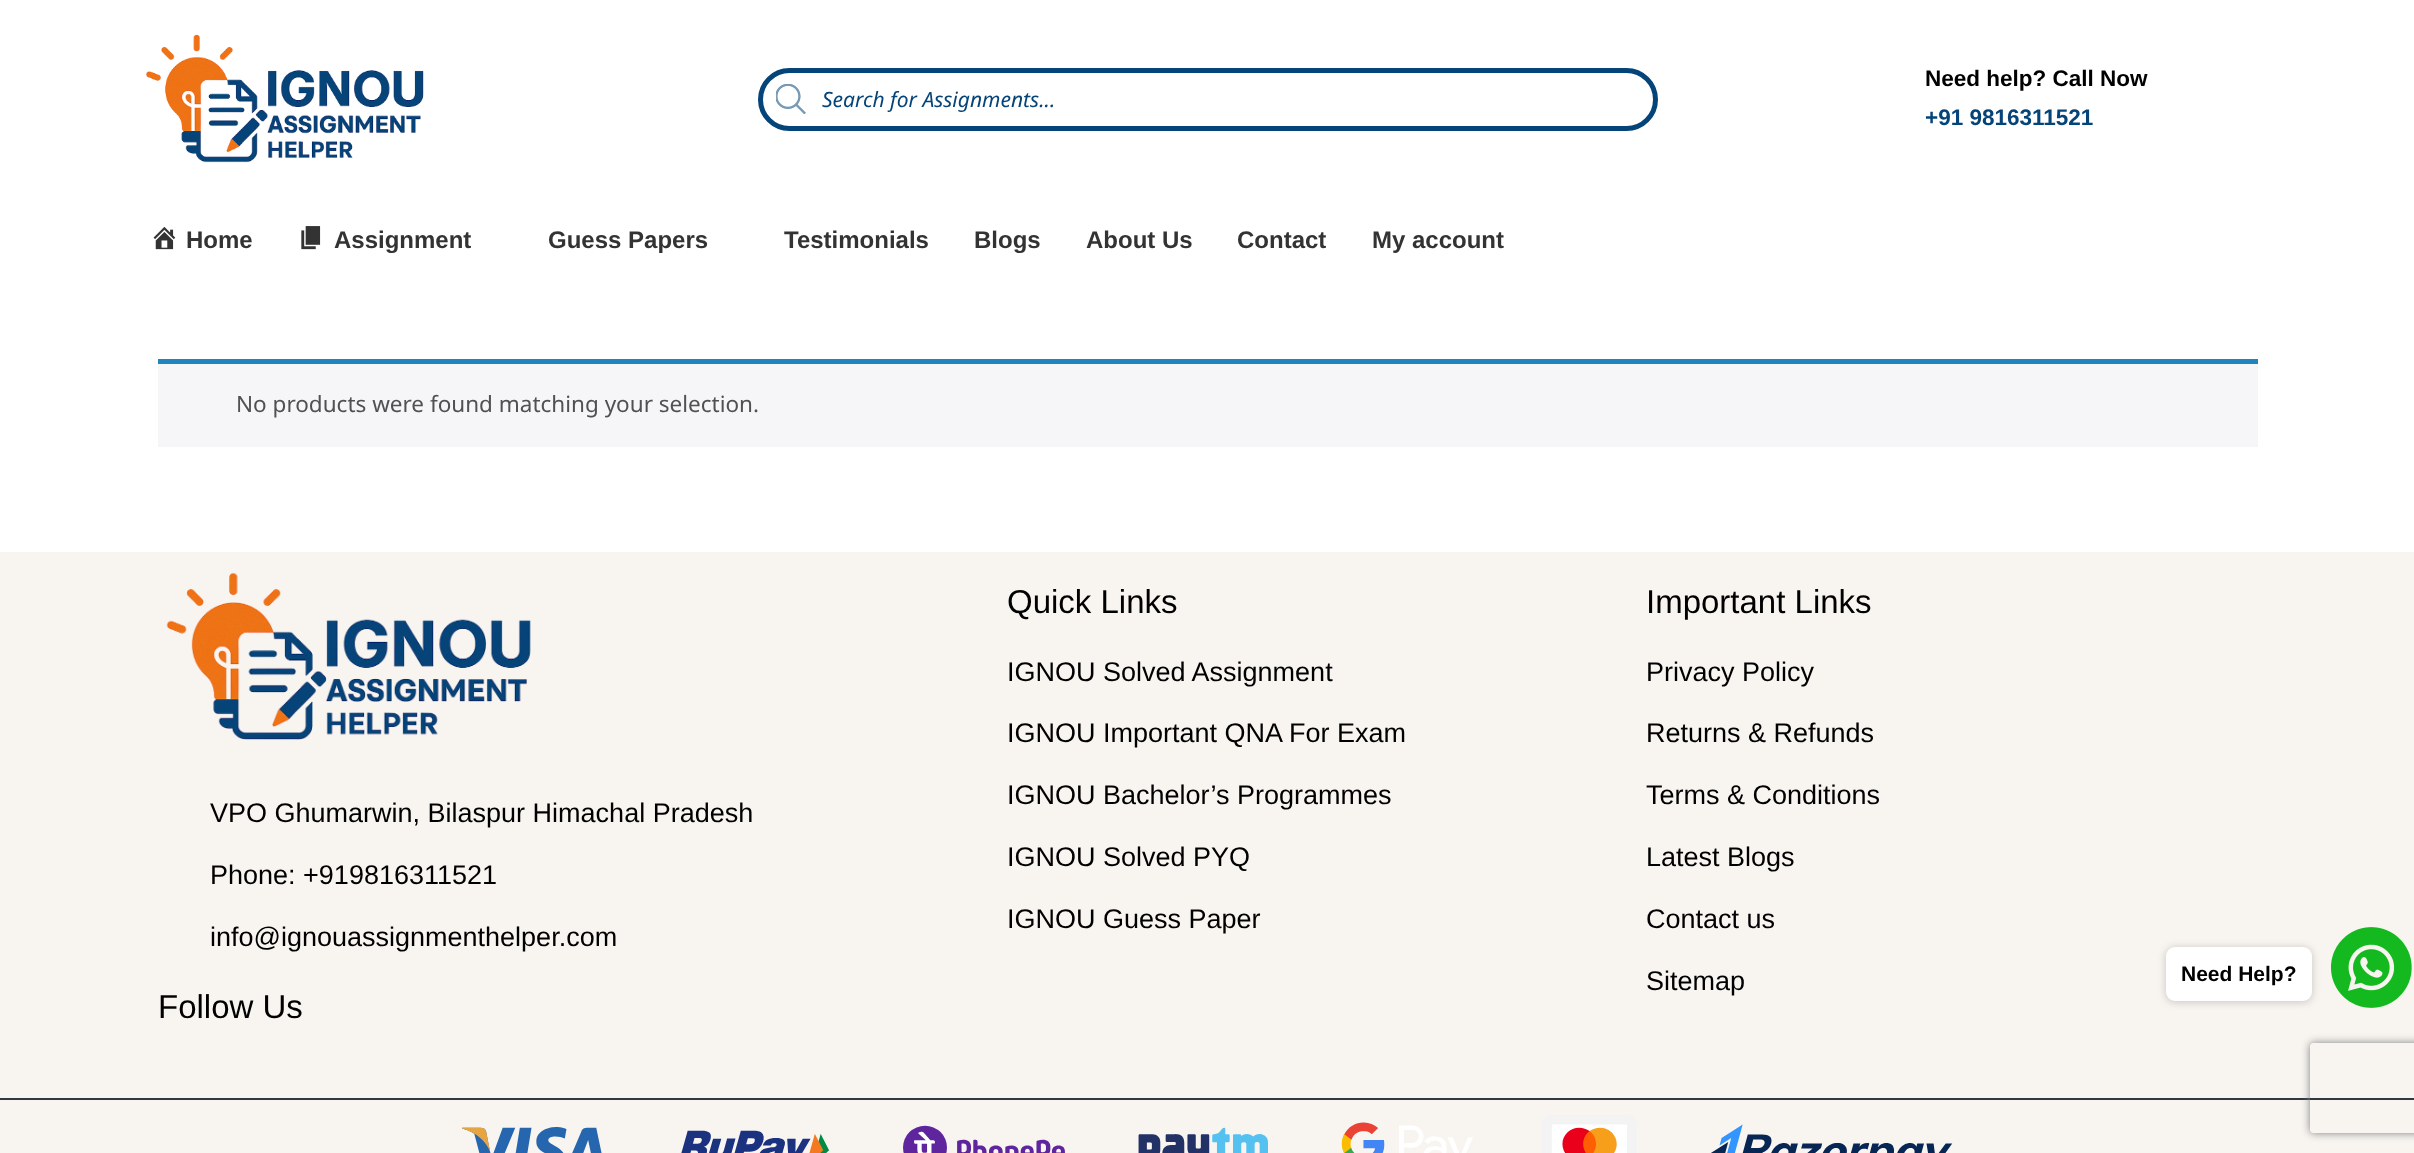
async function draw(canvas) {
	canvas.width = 2414;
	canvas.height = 1153;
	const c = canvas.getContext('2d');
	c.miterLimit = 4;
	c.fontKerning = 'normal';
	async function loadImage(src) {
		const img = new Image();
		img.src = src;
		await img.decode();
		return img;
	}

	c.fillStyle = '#fff';
	c.fillRect(0, 0, 2414, 1153);
	c.drawImage(await loadImage('img1.png'), 146, 34, 278, 129);
	c.beginPath();
	c.roundRect(760.5, 70.5, 895, 58, 29);
	c.strokeStyle = '#054479';
	c.lineWidth = 5;
	c.stroke();
	c.drawImage(await loadImage('img2.png'), 776, 84, 30, 30);
	c.font = 'italic 21px Noto Sans';
	c.fillStyle = '#054479';
	c.fillText('Search for Assignments...', 822, 107);
	c.font = 'bold 22.5px Liberation Sans';
	c.fillStyle = '#000';
	c.fillText('Need help? Call Now', 1925, 86);
	c.fillStyle = '#054479';
	c.fillText('+91 9816311521', 1925, 125);
	c.drawImage(await loadImage('img3.png'), 153, 226, 23, 24);
	c.font = 'bold 24px Liberation Sans';
	c.fillStyle = '#333';
	c.fillText('Home', 186, 248);
	c.drawImage(await loadImage('img4.png'), 301, 226, 20, 24);
	for (const [text, x, y] of [
		['Assignment', 334, 248],
		['Guess Papers', 548, 248],
		['Testimonials', 784, 248],
		['Blogs', 974, 248],
		['About Us', 1086, 248],
		['Contact', 1237, 248],
		['My account', 1372, 248],
	]) {
		c.fillText(text, x, y);
	}
	c.fillStyle = '#f6f5f8';
	c.fillRect(158, 364, 2100, 83);
	c.fillStyle = '#1e85be';
	c.fillRect(158, 359, 2100, 5);
	c.font = '22.5px Noto Sans';
	c.fillStyle = '#515151';
	c.fillText('No products were found matching your selection.', 236, 412);
	c.fillStyle = '#f8f5f1';
	c.fillRect(0, 552, 2414, 546);
	c.fillStyle = '#30373e';
	c.fillRect(0, 1098, 2414, 2);
	c.drawImage(await loadImage('img5.png'), 166, 572, 365, 168);
	c.font = '27px Liberation Sans';
	c.fillStyle = '#000';
	for (const [text, x, y] of [
		['VPO Ghumarwin, Bilaspur Himachal Pradesh', 210, 822],
		['Phone: +919816311521', 210, 884],
		['info@ignouassignmenthelper.com', 210, 946],
	]) {
		c.fillText(text, x, y);
	}
	c.font = '33px Liberation Sans';
	c.fillText('Follow Us', 158, 1018);
	c.fillText('Quick Links', 1007, 613);
	c.font = '27px Liberation Sans';
	for (const [text, x, y] of [
		['IGNOU Solved Assignment', 1007, 681],
		['IGNOU Important QNA For Exam', 1007, 742],
		['IGNOU Bachelor’s Programmes', 1007, 804],
		['IGNOU Solved PYQ', 1007, 866],
		['IGNOU Guess Paper', 1007, 928],
	]) {
		c.fillText(text, x, y);
	}
	c.font = '33px Liberation Sans';
	c.fillText('Important Links', 1646, 613);
	c.font = '27px Liberation Sans';
	for (const [text, x, y] of [
		['Privacy Policy', 1646, 681],
		['Returns & Refunds', 1646, 742],
		['Terms & Conditions', 1646, 804],
		['Latest Blogs', 1646, 866],
		['Contact us', 1646, 928],
		['Sitemap', 1646, 990],
	]) {
		c.fillText(text, x, y);
	}
	c.fillStyle = '#f8f5f1';
	c.fillRect(0, 1100, 2414, 53);
	c.drawImage(await loadImage('img6.png'), 462, 1115, 1491, 38);
	c.fillStyle = '#00000033';
	c.filter = 'blur(4.5px)';
	c.beginPath();
	c.roundRect(2166, 948, 146, 54, 9);
	c.fill();
	c.filter = 'none';
	c.fillStyle = '#fff';
	c.beginPath();
	c.roundRect(2166, 947, 146, 54, 9);
	c.fill();
	c.font = 'bold 21px Liberation Sans';
	c.fillStyle = '#000';
	c.fillText('Need Help?', 2181, 981);
	c.drawImage(await loadImage('img7.png'), 2331, 927, 81, 81);
	c.save();
	c.beginPath();
	c.moveTo(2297, 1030);
	c.lineTo(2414, 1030);
	c.lineTo(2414, 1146);
	c.lineTo(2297, 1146);
	c.closePath();
	c.moveTo(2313, 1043);
	c.lineTo(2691, 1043);
	c.bezierCurveTo(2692.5, 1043, 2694, 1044.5, 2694, 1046);
	c.lineTo(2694, 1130);
	c.bezierCurveTo(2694, 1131.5, 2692.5, 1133, 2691, 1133);
	c.lineTo(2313, 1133);
	c.bezierCurveTo(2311.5, 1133, 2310, 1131.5, 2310, 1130);
	c.lineTo(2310, 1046);
	c.bezierCurveTo(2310, 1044.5, 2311.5, 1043, 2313, 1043);
	c.closePath();
	c.clip('evenodd');
	c.fillStyle = '#808080';
	c.filter = 'blur(4px)';
	c.beginPath();
	c.roundRect(2310, 1043, 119, 90, 3);
	c.fill();
	c.filter = 'none';
	c.restore();
}

draw(document.querySelector('canvas'));
